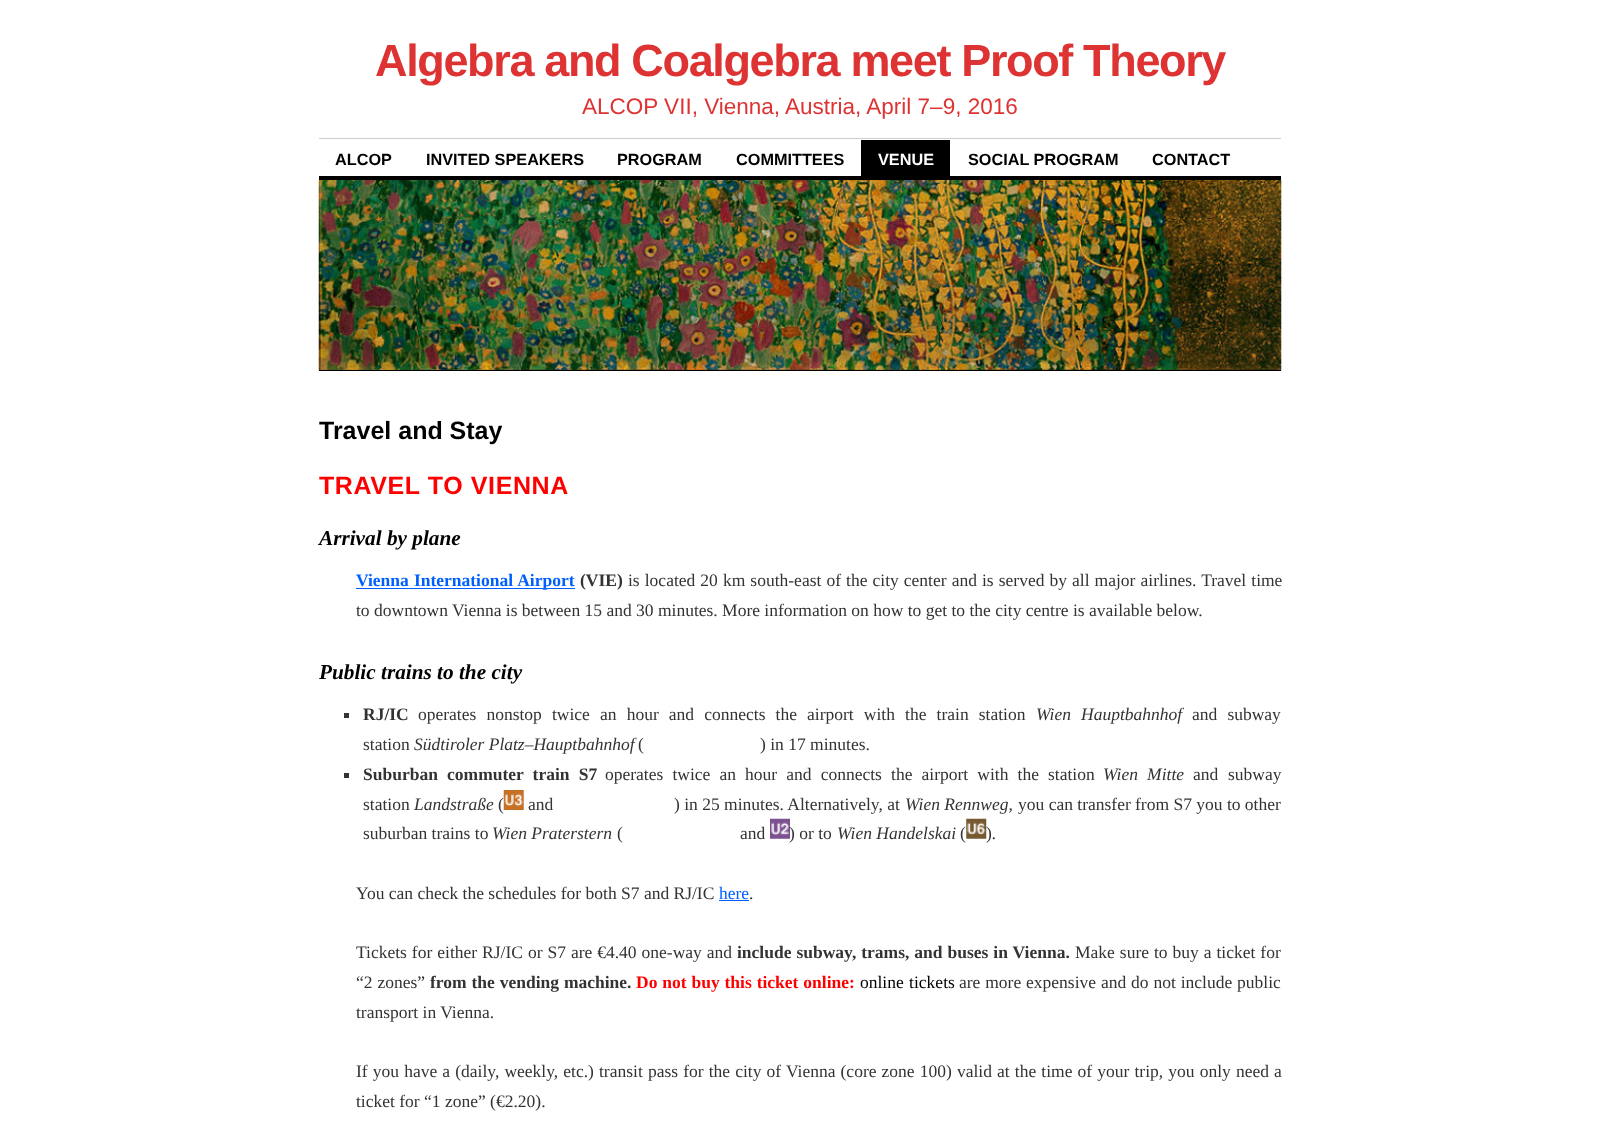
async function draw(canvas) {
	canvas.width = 1600;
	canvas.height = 1126;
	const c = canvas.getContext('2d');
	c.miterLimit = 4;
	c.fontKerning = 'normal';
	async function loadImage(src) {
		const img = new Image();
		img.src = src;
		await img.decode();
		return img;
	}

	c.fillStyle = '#fff';
	c.fillRect(0, 0, 1600, 1126);
	c.letterSpacing = '-1.35px';
	c.font = 'bold 45px Liberation Sans';
	c.fillStyle = '#d33';
	c.fillText('Algebra and Coalgebra meet Proof Theory', 375, 76);
	c.letterSpacing = '0px';
	c.font = '22.5px Liberation Sans';
	c.fillText('ALCOP VII, Vienna, Austria, April 7–9, 2016', 582, 114);
	c.fillStyle = '#ccc';
	c.fillRect(319, 138, 962, 1);
	c.font = 'bold 16.25px Liberation Sans';
	c.fillStyle = '#000';
	for (const [text, x, y] of [
		['ALCOP', 335, 165],
		['INVITED SPEAKERS', 426, 165],
		['PROGRAM', 617, 165],
		['COMMITTEES', 736, 165],
	]) {
		c.fillText(text, x, y);
	}
	c.fillRect(861, 140, 89, 36);
	c.fillStyle = '#fff';
	c.fillText('VENUE', 878, 165);
	c.fillStyle = '#000';
	c.fillText('SOCIAL PROGRAM', 968, 165);
	c.fillText('CONTACT', 1152, 165);
	c.fillRect(319, 176, 962, 4);
	c.drawImage(await loadImage('img1.png'), 318, 180, 964, 190);
	c.fillRect(319, 370, 962, 1);
	c.font = 'bold 25px Liberation Sans';
	c.fillText('Travel and Stay', 319, 439);
	c.letterSpacing = '0.6px';
	c.fillStyle = '#f00';
	c.fillText('TRAVEL TO VIENNA', 319, 494);
	c.letterSpacing = '0px';
	c.font = 'italic bold 21.25px Liberation Serif';
	c.fillStyle = '#000';
	c.fillText('Arrival by plane', 319, 545);
	c.fillStyle = '#0060ff';
	c.fillRect(356, 588, 219, 1);
	c.wordSpacing = '0.7px';
	c.font = 'bold 17.5px Liberation Serif';
	c.fillText('Vienna International Airport', 356, 586);
	c.wordSpacing = '0px';
	c.fillStyle = '#333';
	c.fillText('(VIE)', 580, 586);
	c.wordSpacing = '0.7px';
	c.font = '17.5px Liberation Serif';
	c.fillText('is located 20 km south-east of the city center and is served by all major airlines. Travel time', 628, 586);
	c.wordSpacing = '0px';
	c.fillText('to downtown Vienna is between 15 and 30 minutes. More information on how to get to the city centre is available below.', 356, 616);
	c.font = 'italic bold 21.25px Liberation Serif';
	c.fillStyle = '#000';
	c.fillText('Public trains to the city', 319, 679);
	c.fillStyle = '#333';
	c.fillRect(344, 713, 5, 5);
	c.font = 'bold 17.5px Liberation Serif';
	c.fillText('RJ/IC', 363, 720);
	c.wordSpacing = '5.75px';
	c.font = '17.5px Liberation Serif';
	c.fillText('operates nonstop twice an hour and connects the airport with the train station', 418, 720);
	c.font = 'italic 17.5px Liberation Serif';
	c.fillText('Wien Hauptbahnhof', 1036, 720);
	c.font = '17.5px Liberation Serif';
	c.fillText('and subway', 1192, 720);
	c.wordSpacing = '0px';
	c.fillText('station', 363, 750);
	c.font = 'italic 17.5px Liberation Serif';
	c.fillText('Südtiroler Platz–Hauptbahnhof', 414, 750);
	c.font = '17.5px Liberation Serif';
	c.fillText('(', 638, 750);
	c.fillText(') in 17 minutes.', 760, 750);
	c.fillRect(344, 773, 5, 5);
	c.wordSpacing = '4.75px';
	c.font = 'bold 17.5px Liberation Serif';
	c.fillText('Suburban commuter train S7', 363, 780);
	c.font = '17.5px Liberation Serif';
	c.fillText('operates twice an hour and connects the airport with the station', 605, 780);
	c.font = 'italic 17.5px Liberation Serif';
	c.fillText('Wien Mitte', 1103, 780);
	c.wordSpacing = '0px';
	c.font = '17.5px Liberation Serif';
	c.fillText('and', 1193, 780);
	c.fillText('subway', 1228, 780);
	c.fillText('station', 363, 810);
	c.font = 'italic 17.5px Liberation Serif';
	c.fillText('Landstraße', 414, 810);
	c.font = '17.5px Liberation Serif';
	c.fillText('(', 498, 810);
	c.drawImage(await loadImage('img2.png'), 503, 790, 21, 20);
	c.fillText('and', 528, 810);
	c.fillText(') in 25 minutes. Alternatively, at', 674, 810);
	c.font = 'italic 17.5px Liberation Serif';
	c.fillText('Wien Rennweg,', 905, 810);
	c.font = '17.5px Liberation Serif';
	for (const [text, x, y] of [
		['you can transfer', 1018, 810],
		['from S7 you to other', 1135, 810],
		['suburban trains to', 363, 839],
	]) {
		c.fillText(text, x, y);
	}
	c.font = 'italic 17.5px Liberation Serif';
	c.fillText('Wien Praterstern', 492, 839);
	c.font = '17.5px Liberation Serif';
	c.fillText('(', 617, 839);
	c.fillText('and', 740, 839);
	c.drawImage(await loadImage('img3.png'), 770, 818, 20, 21);
	c.fillText(') or to', 789, 839);
	c.font = 'italic 17.5px Liberation Serif';
	c.fillText('Wien Handelskai', 837, 839);
	c.font = '17.5px Liberation Serif';
	c.fillText('(', 960, 839);
	c.drawImage(await loadImage('img4.png'), 966, 818, 21, 21);
	c.fillText(')', 986, 839);
	c.font = 'italic 17.5px Liberation Serif';
	c.fillText('.', 992, 839);
	c.font = '17.5px Liberation Serif';
	c.fillText('You can check the schedules for both S7 and RJ/IC', 356, 899);
	c.fillStyle = '#0060ff';
	c.fillText('here', 719, 899);
	c.fillRect(719, 900, 30, 1);
	c.fillStyle = '#333';
	c.fillText('.', 749, 899);
	c.wordSpacing = '0.6px';
	c.fillText('Tickets for either RJ/IC or S7 are €4.40 one-way and', 356, 958);
	c.font = 'bold 17.5px Liberation Serif';
	c.fillText('include subway, trams, and buses in Vienna.', 737, 958);
	c.font = '17.5px Liberation Serif';
	c.fillText('Make sure to buy a ticket for', 1075, 958);
	c.wordSpacing = '0.5px';
	c.fillText('“2 zones”', 356, 988);
	c.font = 'bold 17.5px Liberation Serif';
	c.fillText('from the vending machine.', 430, 988);
	c.fillStyle = '#f00';
	c.fillText('Do not buy this ticket online:', 636, 988);
	c.wordSpacing = '1px';
	c.font = '17.5px Liberation Serif';
	c.fillStyle = '#000';
	c.fillText('online tickets', 860, 988);
	c.wordSpacing = '0.5px';
	c.fillStyle = '#333';
	c.fillText('are more expensive and do not include public', 959, 988);
	c.wordSpacing = '0px';
	c.fillText('transport in Vienna.', 356, 1018);
	c.wordSpacing = '0.75px';
	c.fillText('If you have a (daily, weekly, etc.) transit pass for the city of Vienna (core zone 100) valid at the time of your trip, you only need a', 356, 1077);
	c.wordSpacing = '0px';
	c.fillText('ticket for “1 zone” (€2.20).', 356, 1107);
}

draw(document.querySelector('canvas'));
